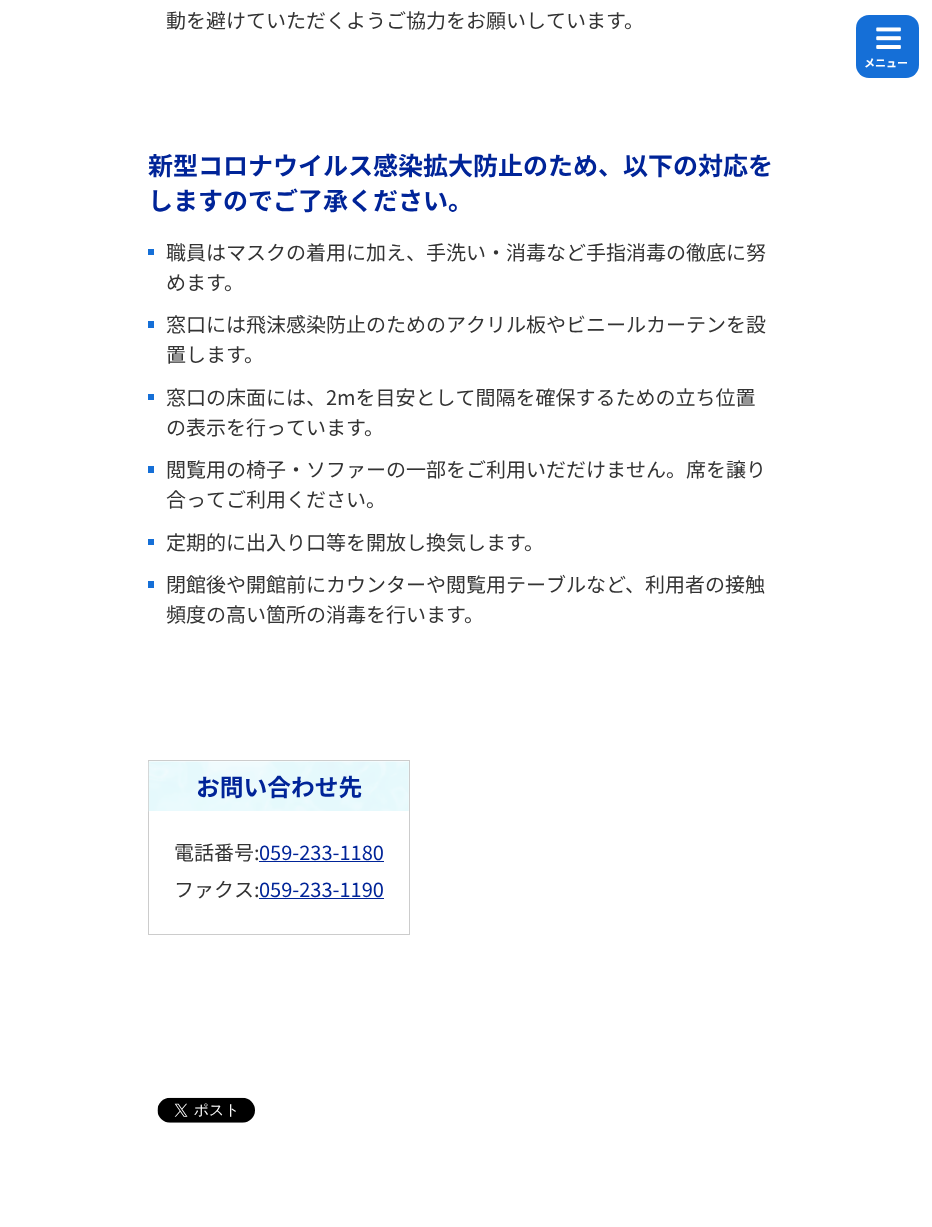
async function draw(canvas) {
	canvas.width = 932;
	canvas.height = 1227;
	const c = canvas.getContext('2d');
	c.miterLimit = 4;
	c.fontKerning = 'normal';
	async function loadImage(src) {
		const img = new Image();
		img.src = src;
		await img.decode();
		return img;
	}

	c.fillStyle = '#fff';
	c.fillRect(0, 0, 932, 1227);
	c.font = '20px Noto Sans JP';
	c.fillStyle = '#333';
	c.fillText('動を避けていただくようご協力をお願いしています。', 166, 28);
	c.font = 'bold 25px Noto Sans JP';
	c.fillStyle = '#002498';
	c.fillText('新型コロナウイルス感染拡大防止のため、以下の対応を', 148, 175);
	c.fillText('しますのでご了承ください。', 148, 210);
	c.fillStyle = '#156fd7';
	c.fillRect(148, 249, 6, 6);
	c.font = '20px Noto Sans JP';
	c.fillStyle = '#333';
	c.fillText('職員はマスクの着用に加え、手洗い・消毒など手指消毒の徹底に努', 166, 260);
	c.fillText('めます。', 166, 290);
	c.fillStyle = '#156fd7';
	c.fillRect(148, 321, 6, 7);
	c.fillStyle = '#333';
	c.fillText('窓口には飛沫感染防止のためのアクリル板やビニールカーテンを設', 166, 332);
	c.fillText('置します。', 166, 362);
	c.fillStyle = '#156fd7';
	c.fillRect(148, 394, 6, 6);
	c.fillStyle = '#333';
	c.fillText('窓口の床面には、2mを目安として間隔を確保するための立ち位置', 166, 405);
	c.fillText('の表示を行っています。', 166, 435);
	c.fillStyle = '#156fd7';
	c.fillRect(148, 466, 6, 7);
	c.fillStyle = '#333';
	c.fillText('閲覧用の椅子・ソファーの一部をご利用いだだけません。席を譲り', 166, 477);
	c.fillText('合ってご利用ください。', 166, 507);
	c.fillStyle = '#156fd7';
	c.fillRect(148, 539, 6, 6);
	c.fillStyle = '#333';
	c.fillText('定期的に出入り口等を開放し換気します。', 166, 550);
	c.fillStyle = '#156fd7';
	c.fillRect(148, 581, 6, 7);
	c.fillStyle = '#333';
	c.fillText('閉館後や開館前にカウンターや閲覧用テーブルなど、利用者の接触', 166, 592);
	c.fillText('頻度の高い箇所の消毒を行います。', 166, 622);
	c.strokeStyle = '#ccc';
	c.strokeRect(148.5, 760.5, 261, 174);
	c.drawImage(await loadImage('img1.png'), 148, 761, 261, 51);
	c.font = 'bold 23.75px Noto Sans JP';
	c.fillStyle = '#002498';
	c.fillText('お問い合わせ先', 196, 796);
	c.fillStyle = '#fff';
	c.fillRect(149, 811, 260, 1);
	c.font = '20px Noto Sans JP';
	c.fillStyle = '#333';
	c.fillText('電話番号:', 174, 860);
	c.fillStyle = '#002498';
	c.fillText('059-233-1180', 259, 860);
	c.fillRect(259, 861, 125, 1);
	c.fillStyle = '#333';
	c.fillText('ファクス:', 174, 897);
	c.fillStyle = '#002498';
	c.fillText('059-233-1190', 259, 897);
	c.fillRect(259, 898, 125, 1);
	c.drawImage(await loadImage('img2.png'), 157, 1097, 98, 26);
	c.fillStyle = '#156fd7';
	c.beginPath();
	c.roundRect(856, 15, 63, 63, 13);
	c.fill();
	c.drawImage(await loadImage('img3.png'), 876, 27, 25, 22);
	c.font = 'bold 11px Noto Sans JP';
	c.fillStyle = '#fff';
	c.fillText('メニュー', 864, 67);
}

draw(document.querySelector('canvas'));
